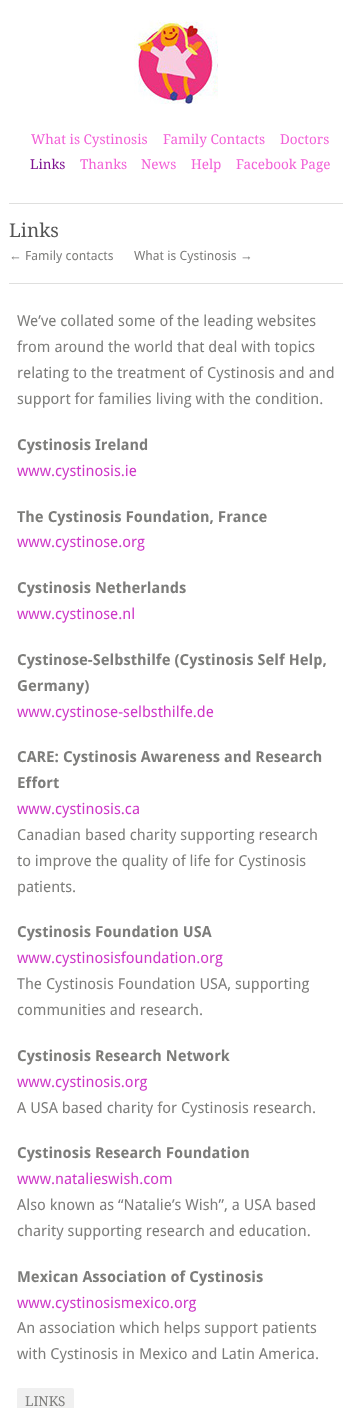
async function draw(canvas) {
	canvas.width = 352;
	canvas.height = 1408;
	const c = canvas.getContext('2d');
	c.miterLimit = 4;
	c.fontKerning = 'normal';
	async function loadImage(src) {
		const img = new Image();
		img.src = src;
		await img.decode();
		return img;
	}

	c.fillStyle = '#fff';
	c.fillRect(0, 0, 352, 1408);
	c.drawImage(await loadImage('img1.png'), 134, 20, 84, 84);
	c.font = '13.5px Droid Serif';
	c.fillStyle = '#f260d7';
	for (const [text, x, y] of [
		['What is Cystinosis', 31, 144],
		['Family Contacts', 163, 144],
		['Doctors', 280, 144],
	]) {
		c.fillText(text, x, y);
	}
	c.fillStyle = '#7e1291';
	c.fillText('Links', 30, 169);
	c.fillStyle = '#f260d7';
	for (const [text, x, y] of [
		['Thanks', 80, 169],
		['News', 141, 169],
		['Help', 191, 169],
		['Facebook Page', 236, 169],
	]) {
		c.fillText(text, x, y);
	}
	c.fillStyle = '#dfdfde';
	c.fillRect(9, 203, 334, 1);
	c.fillRect(9, 283, 334, 1);
	c.font = '19px Droid Serif';
	c.fillStyle = '#555';
	c.fillText('Links', 9, 237);
	c.font = '12.75px Liberation Sans';
	c.fillStyle = '#7d7d7b';
	c.fillText('←', 9, 260);
	c.font = '12.75px Droid Sans';
	c.fillText('Family contacts', 25, 260);
	c.fillText('What is Cystinosis', 134, 260);
	c.font = '12.75px Liberation Sans';
	c.fillText('→', 240, 260);
	c.font = '15.2px Droid Sans';
	for (const [text, x, y] of [
		['We’ve collated some of the leading websites', 17, 326],
		['from around the world that deal with topics', 17, 352],
		['relating to the treatment of Cystinosis and and', 17, 378],
		['support for families living with the condition.', 17, 404],
	]) {
		c.fillText(text, x, y);
	}
	c.font = 'bold 15.2px Droid Sans';
	c.fillText('Cystinosis Ireland', 17, 450);
	c.font = '15.2px Droid Sans';
	c.fillStyle = '#ce39c7';
	c.fillText('www.cystinosis.ie', 17, 476);
	c.font = 'bold 15.2px Droid Sans';
	c.fillStyle = '#7d7d7b';
	c.fillText('The Cystinosis Foundation, France', 17, 522);
	c.font = '15.2px Droid Sans';
	c.fillStyle = '#ce39c7';
	c.fillText('www.cystinose.org', 17, 547);
	c.font = 'bold 15.2px Droid Sans';
	c.fillStyle = '#7d7d7b';
	c.fillText('Cystinosis Netherlands', 17, 593);
	c.font = '15.2px Droid Sans';
	c.fillStyle = '#ce39c7';
	c.fillText('www.cystinose.nl', 17, 619);
	c.font = 'bold 15.2px Droid Sans';
	c.fillStyle = '#7d7d7b';
	c.fillText('Cystinose-Selbsthilfe (Cystinosis Self Help,', 17, 665);
	c.fillText('Germany)', 17, 691);
	c.font = '15.2px Droid Sans';
	c.fillStyle = '#ce39c7';
	c.fillText('www.cystinose-selbsthilfe.de', 17, 717);
	c.font = 'bold 15.2px Droid Sans';
	c.fillStyle = '#7d7d7b';
	c.fillText('CARE: Cystinosis Awareness and Research', 17, 762);
	c.fillText('Effort', 17, 788);
	c.font = '15.2px Droid Sans';
	c.fillStyle = '#ce39c7';
	c.fillText('www.cystinosis.ca', 17, 814);
	c.fillStyle = '#7d7d7b';
	for (const [text, x, y] of [
		['Canadian based charity supporting research', 17, 840],
		['to improve the quality of life for Cystinosis', 17, 866],
		['patients.', 17, 892],
	]) {
		c.fillText(text, x, y);
	}
	c.font = 'bold 15.2px Droid Sans';
	c.fillText('Cystinosis Foundation USA', 17, 937);
	c.font = '15.2px Droid Sans';
	c.fillStyle = '#ce39c7';
	c.fillText('www.cystinosisfoundation.org', 17, 963);
	c.fillStyle = '#7d7d7b';
	c.fillText('The Cystinosis Foundation USA, supporting', 17, 989);
	c.fillText('communities and research.', 17, 1015);
	c.font = 'bold 15.2px Droid Sans';
	c.fillText('Cystinosis Research Network', 17, 1061);
	c.font = '15.2px Droid Sans';
	c.fillStyle = '#ce39c7';
	c.fillText('www.cystinosis.org', 17, 1087);
	c.fillStyle = '#7d7d7b';
	c.fillText('A USA based charity for Cystinosis research.', 17, 1113);
	c.font = 'bold 15.2px Droid Sans';
	c.fillText('Cystinosis Research Foundation', 17, 1158);
	c.font = '15.2px Droid Sans';
	c.fillStyle = '#ce39c7';
	c.fillText('www.natalieswish.com', 17, 1184);
	c.fillStyle = '#7d7d7b';
	c.fillText('Also known as “Natalie’s Wish”, a USA based', 17, 1210);
	c.fillText('charity supporting research and education.', 17, 1236);
	c.font = 'bold 15.2px Droid Sans';
	c.fillText('Mexican Association of Cystinosis', 17, 1282);
	c.font = '15.2px Droid Sans';
	c.fillStyle = '#ce39c7';
	c.fillText('www.cystinosismexico.org', 17, 1308);
	c.fillStyle = '#7d7d7b';
	c.fillText('An association which helps support patients', 17, 1333);
	c.fillText('with Cystinosis in Mexico and Latin America.', 17, 1359);
	c.fillStyle = '#f0f0f0';
	c.beginPath();
	c.roundRect(17, 1388, 57, 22, 2);
	c.fill();
	c.font = '13.5px Droid Serif';
	c.fillStyle = '#7d7d7b';
	c.fillText('LINKS', 25, 1406);
}

draw(document.querySelector('canvas'));
